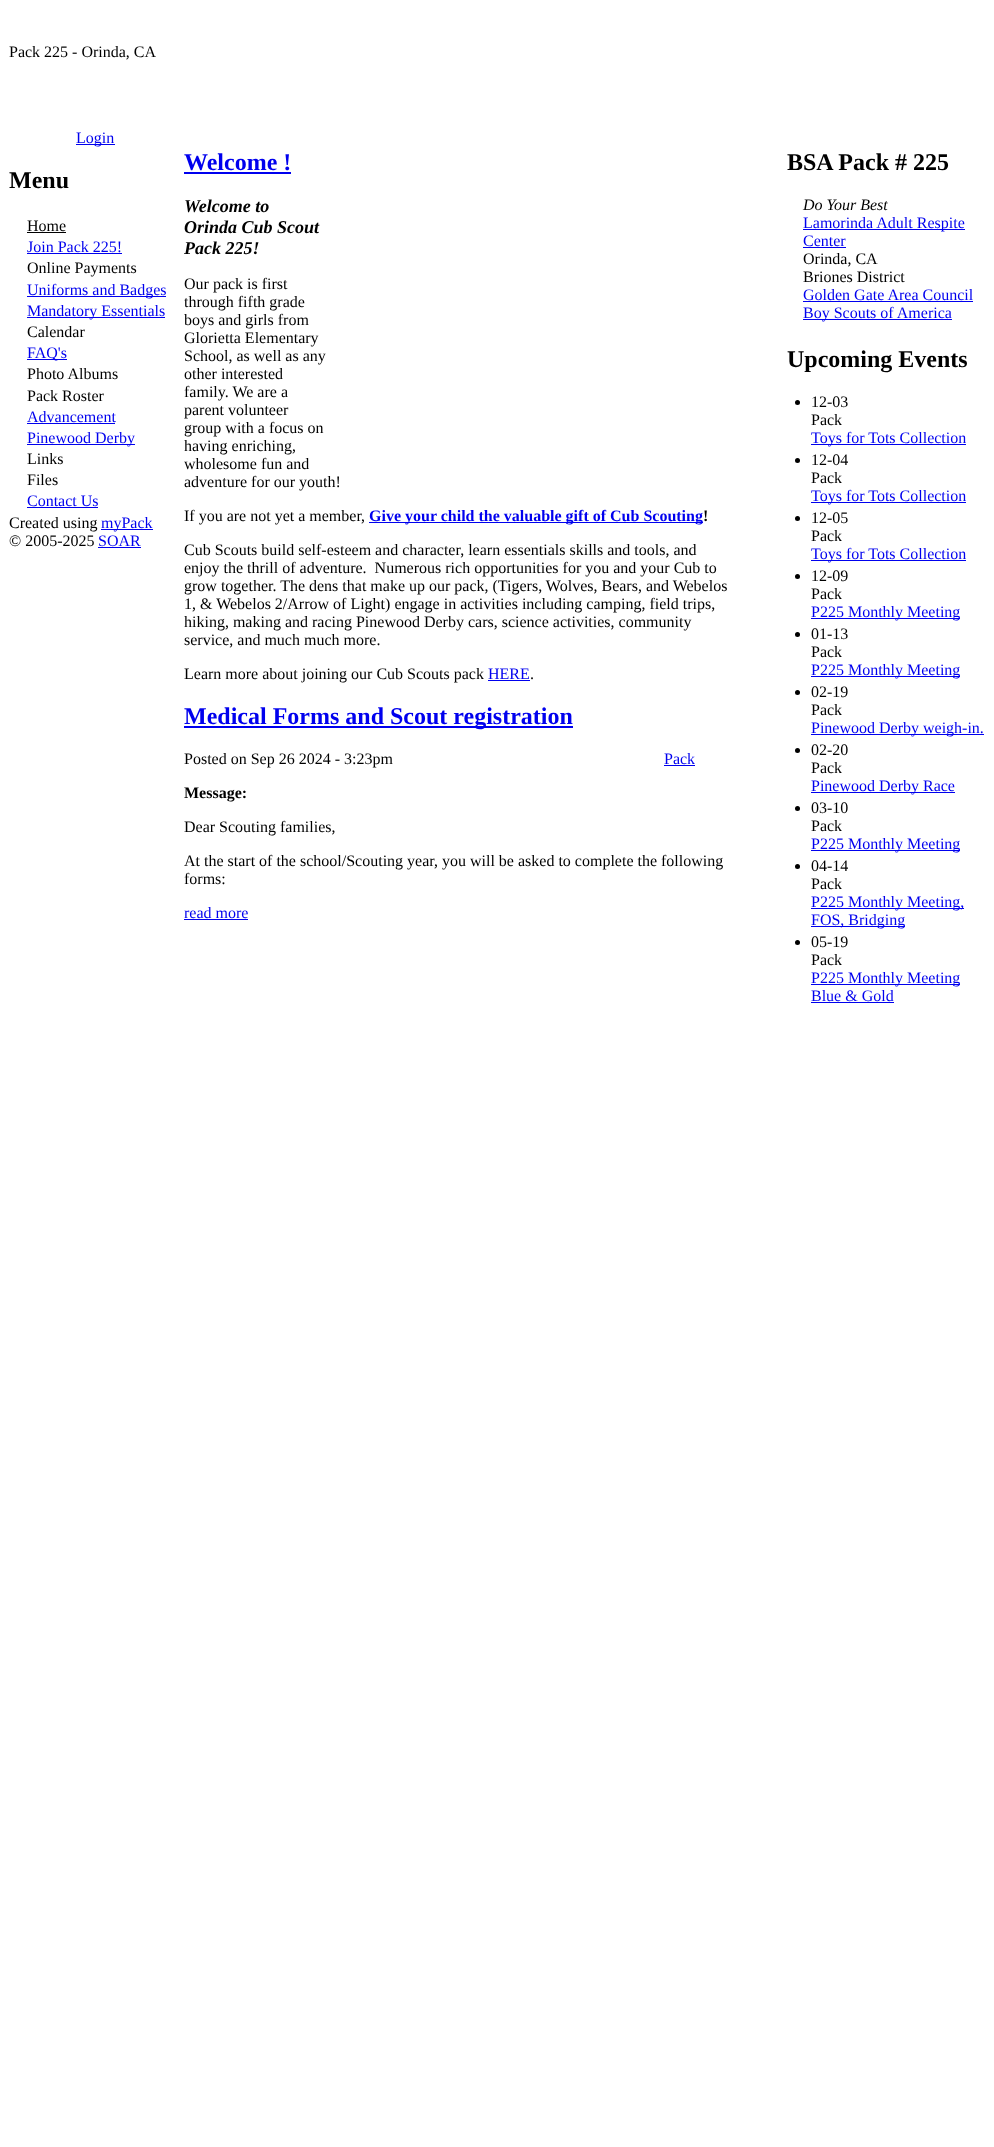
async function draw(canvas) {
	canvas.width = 994;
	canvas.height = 2147;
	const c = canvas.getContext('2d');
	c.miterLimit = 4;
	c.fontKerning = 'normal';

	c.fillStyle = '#fff';
	c.fillRect(0, 0, 994, 2147);
	c.font = '16px Liberation Serif';
	c.fillStyle = '#000';
	c.fillText('Pack 225 - Orinda, CA', 9, 57);
	c.fillStyle = '#00e';
	c.fillRect(76, 144, 39, 1);
	c.fillText('Login', 76, 143);
	c.font = 'bold 24px Liberation Serif';
	c.fillStyle = '#000';
	c.fillText('Menu', 9, 188);
	c.font = '16px Liberation Serif';
	c.fillText('Home', 27, 231);
	c.fillRect(27, 232, 39, 1);
	c.fillStyle = '#00e';
	c.fillText('Join Pack 225!', 27, 252);
	c.fillRect(27, 253, 95, 1);
	c.fillStyle = '#000';
	c.fillText('Online Payments', 27, 273);
	c.fillStyle = '#00e';
	c.fillRect(27, 296, 139, 1);
	c.fillText('Uniforms and Badges', 27, 295);
	c.fillRect(27, 317, 138, 1);
	c.fillText('Mandatory Essentials', 27, 316);
	c.fillStyle = '#000';
	c.fillText('Calendar', 27, 337);
	c.fillStyle = '#00e';
	c.fillRect(27, 359, 40, 1);
	c.fillText('FAQ\'s', 27, 358);
	c.fillStyle = '#000';
	c.fillText('Photo Albums', 27, 379);
	c.fillText('Pack Roster', 27, 401);
	c.fillStyle = '#00e';
	c.fillText('Advancement', 27, 422);
	c.fillRect(27, 423, 88, 1);
	c.fillRect(27, 444, 108, 1);
	c.fillText('Pinewood Derby', 27, 443);
	c.fillStyle = '#000';
	c.fillText('Links', 27, 464);
	c.fillText('Files', 27, 485);
	c.fillStyle = '#00e';
	c.fillText('Contact Us', 27, 506);
	c.fillRect(27, 507, 71, 1);
	c.fillStyle = '#000';
	c.fillText('Created using', 9, 528);
	c.fillStyle = '#00e';
	c.fillRect(101, 529, 52, 1);
	c.fillText('myPack', 101, 528);
	c.fillStyle = '#000';
	c.fillText('© 2005-2025', 9, 546);
	c.fillStyle = '#00e';
	c.fillText('SOAR', 98, 546);
	c.fillRect(98, 547, 43, 1);
	c.font = 'bold 24px Liberation Serif';
	c.fillText('Welcome !', 184, 170);
	c.fillRect(184, 172, 107, 2);
	c.font = 'italic bold 18px Liberation Serif';
	c.fillStyle = '#000';
	for (const [text, x, y] of [
		['Welcome to', 184, 212],
		['Orinda Cub Scout', 184, 233],
		['Pack 225!', 184, 254],
	]) {
		c.fillText(text, x, y);
	}
	c.font = '16px Liberation Serif';
	for (const [text, x, y] of [
		['Our pack is first', 184, 289],
		['through fifth grade', 184, 307],
		['boys and girls from', 184, 325],
		['Glorietta Elementary', 184, 343],
		['School, as well as any', 184, 361],
		['other interested', 184, 379],
		['family. We are a', 184, 397],
		['parent volunteer', 184, 415],
		['group with a focus on', 184, 433],
		['having enriching,', 184, 451],
		['wholesome fun and', 184, 469],
		['adventure for our youth!', 184, 487],
		['If you are not yet a member,', 184, 521],
	]) {
		c.fillText(text, x, y);
	}
	c.fillStyle = '#00e';
	c.fillRect(369, 522, 334, 1);
	c.font = 'bold 16px Liberation Serif';
	c.fillText('Give your child the valuable gift of Cub Scouting', 369, 521);
	c.fillStyle = '#000';
	c.fillText('!', 703, 521);
	c.font = '16px Liberation Serif';
	for (const [text, x, y] of [
		['Cub Scouts build self-esteem and character, learn essentials skills and tools, and', 184, 555],
		['enjoy the thrill of adventure.  Numerous rich opportunities for you and your Cub to', 184, 573],
		['grow together. The dens that make up our pack, (Tigers, Wolves, Bears, and Webelos', 184, 591],
		['1, & Webelos 2/Arrow of Light) engage in activities including camping, field trips,', 184, 609],
		['hiking, making and racing Pinewood Derby cars, science activities, community', 184, 627],
		['service, and much much more.', 184, 645],
		['Learn more about joining our Cub Scouts pack', 184, 679],
	]) {
		c.fillText(text, x, y);
	}
	c.fillStyle = '#00e';
	c.fillText('HERE', 488, 679);
	c.fillStyle = '#000';
	c.fillText('.', 530, 679);
	c.fillStyle = '#00e';
	c.fillRect(488, 680, 42, 1);
	c.fillRect(184, 726, 389, 2);
	c.font = 'bold 24px Liberation Serif';
	c.fillText('Medical Forms and Scout registration', 184, 724);
	c.font = '16px Liberation Serif';
	c.fillStyle = '#000';
	c.fillText('Posted on Sep 26 2024 - 3:23pm', 184, 764);
	c.fillStyle = '#00e';
	c.fillText('Pack', 664, 764);
	c.fillRect(664, 765, 31, 1);
	c.font = 'bold 16px Liberation Serif';
	c.fillStyle = '#000';
	c.fillText('Message:', 184, 798);
	c.font = '16px Liberation Serif';
	for (const [text, x, y] of [
		['Dear Scouting families,', 184, 832],
		['At the start of the school/Scouting year, you will be asked to complete the following', 184, 866],
		['forms:', 184, 884],
	]) {
		c.fillText(text, x, y);
	}
	c.fillStyle = '#00e';
	c.fillText('read more', 184, 918);
	c.fillRect(184, 919, 64, 1);
	c.font = 'bold 24px Liberation Serif';
	c.fillStyle = '#000';
	c.fillText('BSA Pack # 225', 787, 170);
	c.font = 'italic 16px Liberation Serif';
	c.fillText('Do Your Best', 803, 210);
	c.fillStyle = '#00e';
	c.fillRect(803, 229, 162, 1);
	c.font = '16px Liberation Serif';
	c.fillText('Lamorinda Adult Respite', 803, 228);
	c.fillText('Center', 803, 246);
	c.fillRect(803, 247, 43, 1);
	c.fillStyle = '#000';
	c.fillText('Orinda, CA', 803, 264);
	c.fillText('Briones District', 803, 282);
	c.fillStyle = '#00e';
	c.fillText('Golden Gate Area Council', 803, 300);
	c.fillRect(803, 301, 170, 1);
	c.fillRect(803, 319, 149, 1);
	c.fillText('Boy Scouts of America', 803, 318);
	c.font = 'bold 24px Liberation Serif';
	c.fillStyle = '#000';
	c.fillText('Upcoming Events', 787, 367);
	c.beginPath();
	c.arc(797.5, 402.5, 2.5, 0, 2 * Math.PI);
	c.fill();
	c.font = '16px Liberation Serif';
	c.fillText('12-03', 811, 407);
	c.fillText('Pack', 811, 425);
	c.fillStyle = '#00e';
	c.fillRect(811, 444, 155, 1);
	c.fillText('Toys for Tots Collection', 811, 443);
	c.fillStyle = '#000';
	c.beginPath();
	c.arc(797.5, 460.5, 2.5, 0, 2 * Math.PI);
	c.fill();
	c.fillText('12-04', 811, 465);
	c.fillText('Pack', 811, 483);
	c.fillStyle = '#00e';
	c.fillRect(811, 502, 155, 1);
	c.fillText('Toys for Tots Collection', 811, 501);
	c.fillStyle = '#000';
	c.beginPath();
	c.arc(797.5, 518.5, 2.5, 0, 2 * Math.PI);
	c.fill();
	c.fillText('12-05', 811, 523);
	c.fillText('Pack', 811, 541);
	c.fillStyle = '#00e';
	c.fillRect(811, 560, 155, 1);
	c.fillText('Toys for Tots Collection', 811, 559);
	c.fillStyle = '#000';
	c.beginPath();
	c.arc(797.5, 576.5, 2.5, 0, 2 * Math.PI);
	c.fill();
	c.fillText('12-09', 811, 581);
	c.fillText('Pack', 811, 599);
	c.fillStyle = '#00e';
	c.fillRect(811, 618, 149, 1);
	c.fillText('P225 Monthly Meeting', 811, 617);
	c.fillStyle = '#000';
	c.beginPath();
	c.arc(797.5, 634.5, 2.5, 0, 2 * Math.PI);
	c.fill();
	c.fillText('01-13', 811, 639);
	c.fillText('Pack', 811, 657);
	c.fillStyle = '#00e';
	c.fillRect(811, 676, 149, 1);
	c.fillText('P225 Monthly Meeting', 811, 675);
	c.fillStyle = '#000';
	c.beginPath();
	c.arc(797.5, 692.5, 2.5, 0, 2 * Math.PI);
	c.fill();
	c.fillText('02-19', 811, 697);
	c.fillText('Pack', 811, 715);
	c.fillStyle = '#00e';
	c.fillRect(811, 734, 173, 1);
	c.fillText('Pinewood Derby weigh-in.', 811, 733);
	c.fillStyle = '#000';
	c.beginPath();
	c.arc(797.5, 750.5, 2.5, 0, 2 * Math.PI);
	c.fill();
	c.fillText('02-20', 811, 755);
	c.fillText('Pack', 811, 773);
	c.fillStyle = '#00e';
	c.fillRect(811, 792, 144, 1);
	c.fillText('Pinewood Derby Race', 811, 791);
	c.fillStyle = '#000';
	c.beginPath();
	c.arc(797.5, 808.5, 2.5, 0, 2 * Math.PI);
	c.fill();
	c.fillText('03-10', 811, 813);
	c.fillText('Pack', 811, 831);
	c.fillStyle = '#00e';
	c.fillRect(811, 850, 149, 1);
	c.fillText('P225 Monthly Meeting', 811, 849);
	c.fillStyle = '#000';
	c.beginPath();
	c.arc(797.5, 866.5, 2.5, 0, 2 * Math.PI);
	c.fill();
	c.fillText('04-14', 811, 871);
	c.fillText('Pack', 811, 889);
	c.fillStyle = '#00e';
	c.fillRect(811, 908, 153, 1);
	c.fillText('P225 Monthly Meeting,', 811, 907);
	c.fillRect(811, 926, 94, 1);
	c.fillText('FOS, Bridging', 811, 925);
	c.fillStyle = '#000';
	c.beginPath();
	c.arc(797.5, 942.5, 2.5, 0, 2 * Math.PI);
	c.fill();
	c.fillText('05-19', 811, 947);
	c.fillText('Pack', 811, 965);
	c.fillStyle = '#00e';
	c.fillRect(811, 984, 149, 1);
	c.fillText('P225 Monthly Meeting', 811, 983);
	c.fillText('Blue & Gold', 811, 1001);
	c.fillRect(811, 1002, 83, 1);
}

draw(document.querySelector('canvas'));
